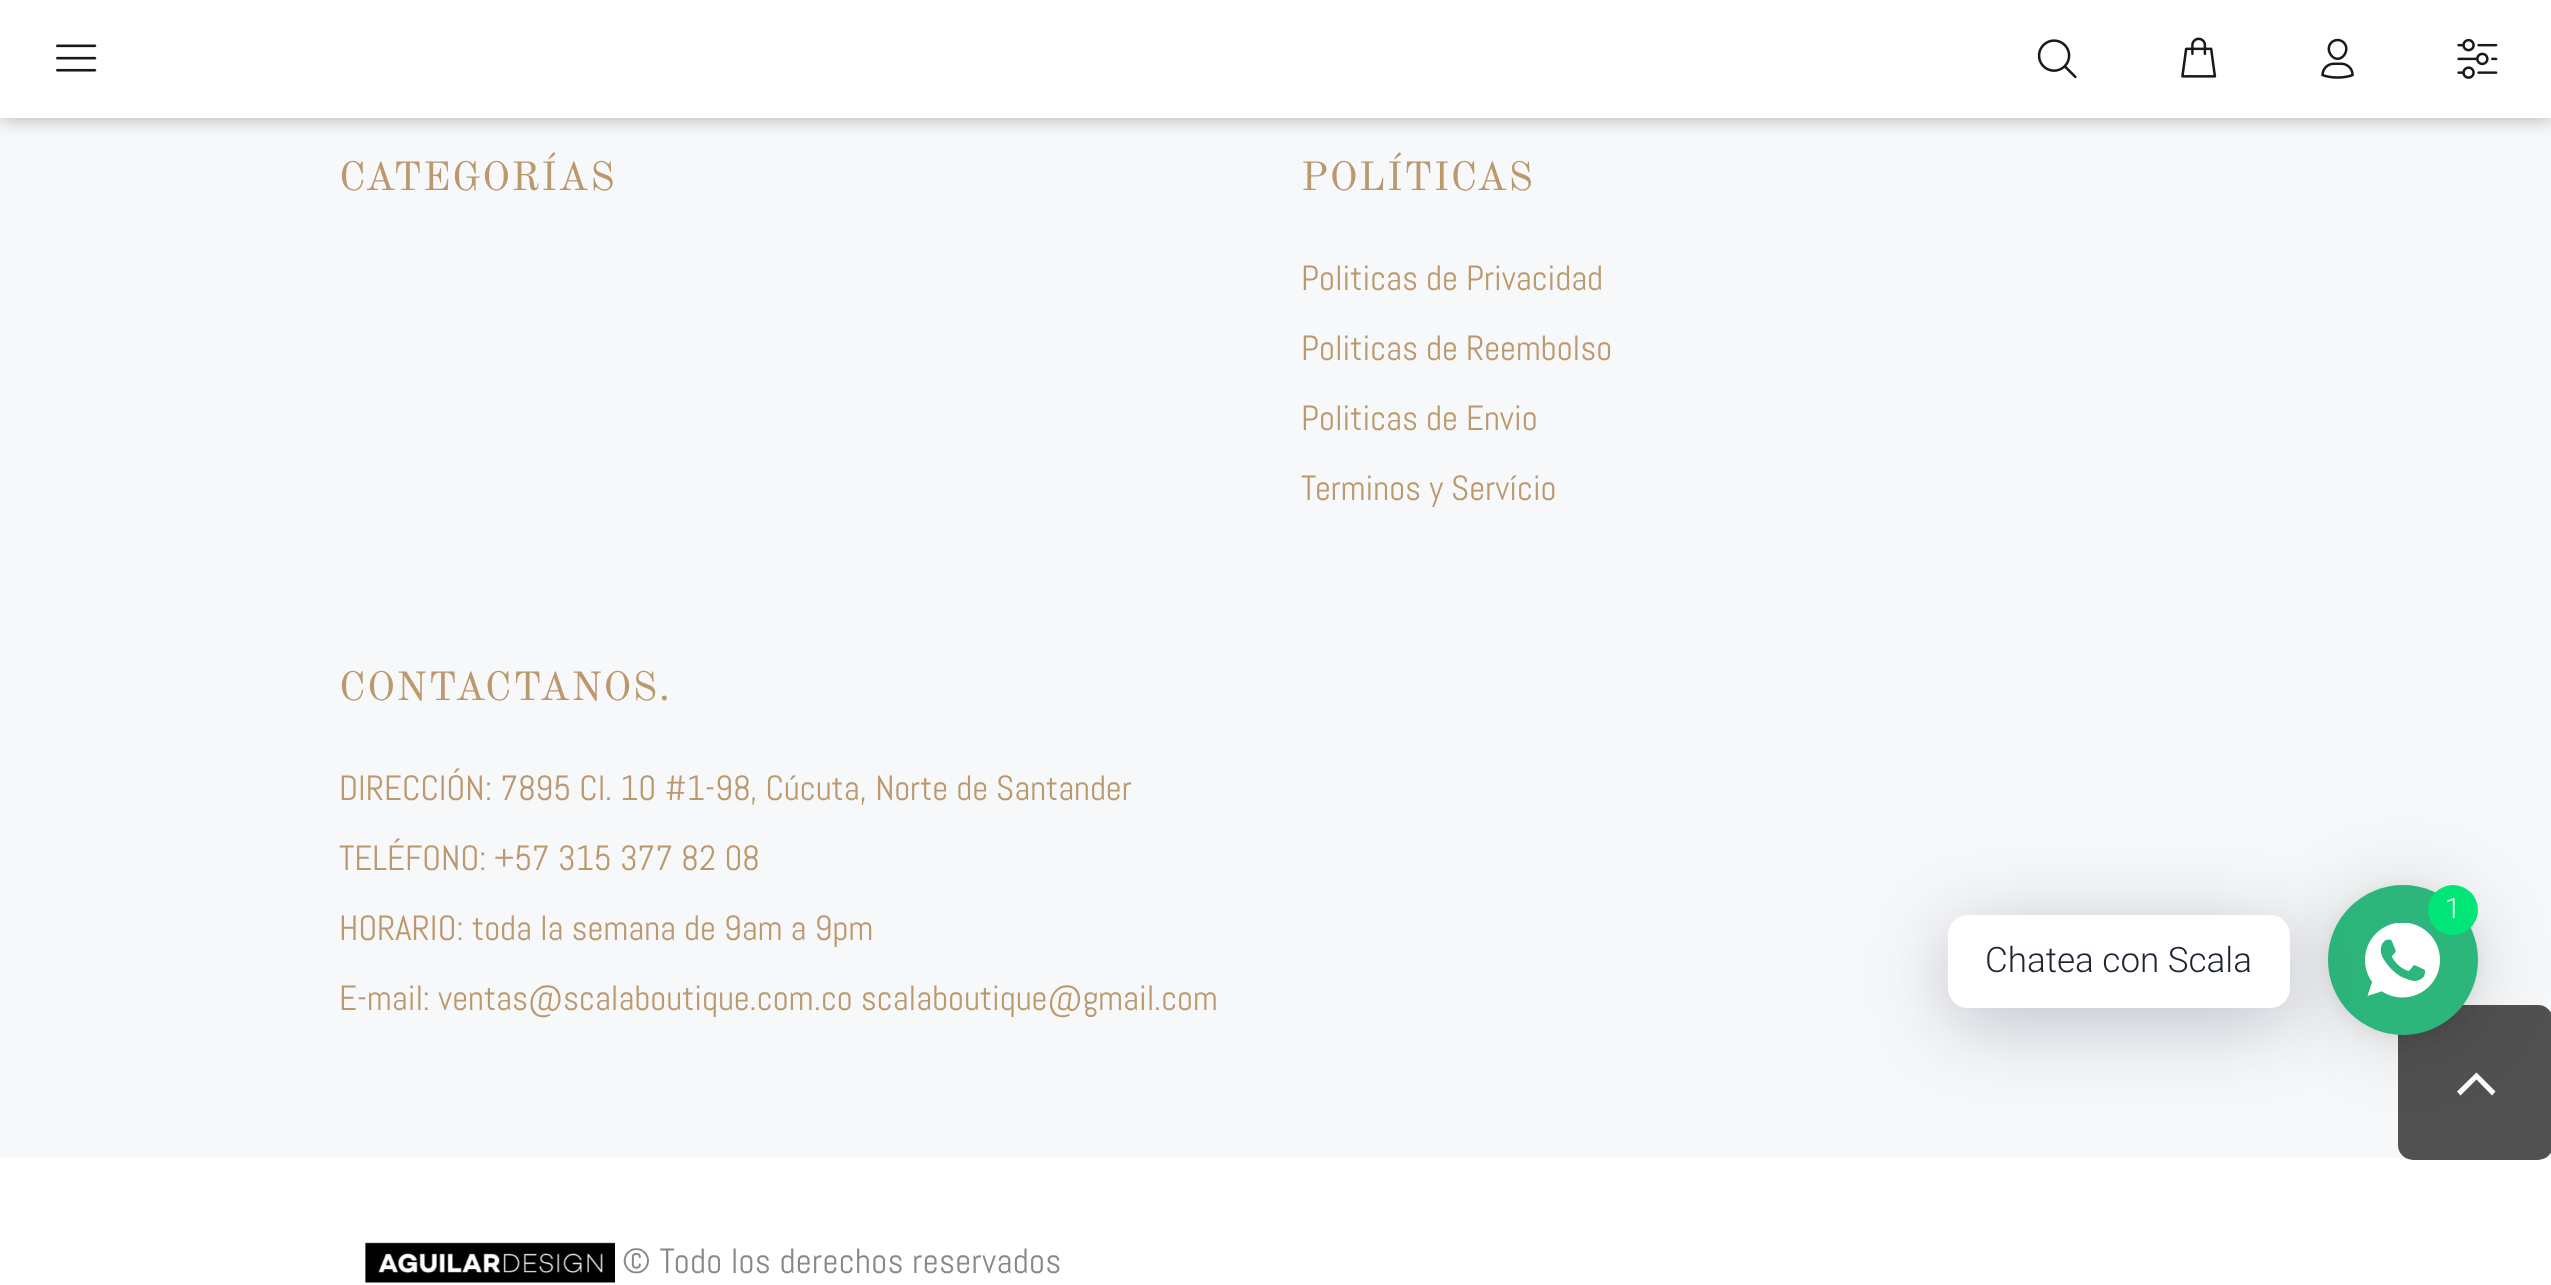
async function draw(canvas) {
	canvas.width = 2551;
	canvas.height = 1285;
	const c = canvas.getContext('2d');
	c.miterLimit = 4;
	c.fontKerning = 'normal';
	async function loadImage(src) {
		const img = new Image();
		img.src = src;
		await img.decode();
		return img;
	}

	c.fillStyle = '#fff';
	c.fillRect(0, 0, 2551, 1285);
	c.fillStyle = '#f7f8fa';
	c.fillRect(0, 118, 2551, 1040);
	c.fillStyle = '#0000004d';
	c.filter = 'blur(10px)';
	c.beginPath();
	c.rect(0, 0, 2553, 118);
	c.fill();
	c.filter = 'none';
	c.fillStyle = '#fff';
	c.fillRect(0, 0, 2551, 118);
	c.drawImage(await loadImage('img1.png'), 56, 44, 41, 28);
	c.drawImage(await loadImage('img2.png'), 2037, 39, 40, 40);
	c.drawImage(await loadImage('img3.png'), 2181, 37, 36, 41);
	c.drawImage(await loadImage('img4.png'), 2321, 38, 33, 41);
	c.drawImage(await loadImage('img5.png'), 2457, 38, 41, 41);
	c.letterSpacing = '1.25px';
	c.font = '40px Old Standard TT';
	c.fillStyle = '#bc986d';
	c.fillText('CATEGORÍAS', 339, 190);
	c.fillText('POLÍTICAS', 1301, 190);
	c.letterSpacing = '0px';
	c.font = '35px Abel';
	for (const [text, x, y] of [
		['Politicas de Privacidad', 1301, 290],
		['Politicas de Reembolso', 1301, 360],
		['Politicas de Envio', 1301, 430],
		['Terminos y Servício', 1301, 500],
	]) {
		c.fillText(text, x, y);
	}
	c.letterSpacing = '1.25px';
	c.font = '40px Old Standard TT';
	c.fillText('CONTACTANOS.', 339, 700);
	c.letterSpacing = '0px';
	c.font = '35px Abel';
	for (const [text, x, y] of [
		['DIRECCIÓN:', 339, 800],
		['7895 Cl. 10 #1-98, Cúcuta, Norte de Santander', 500, 800],
		['TELÉFONO:', 339, 870],
		['+57 315 377 82 08', 494, 870],
		['HORARIO:', 339, 940],
		['toda la semana de 9am a 9pm', 472, 940],
		['E-mail: ventas@scalaboutique.com.co scalaboutique@gmail.com', 339, 1010],
	]) {
		c.fillText(text, x, y);
	}
	c.drawImage(await loadImage('img6.png'), 365, 1242, 250, 41);
	c.letterSpacing = '0.35px';
	c.fillStyle = '#888';
	c.fillText('© Todo los derechos reservados', 622, 1273);
	c.fillStyle = '#191919bf';
	c.beginPath();
	c.roundRect(2398, 1005, 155, 155, 15);
	c.fill();
	c.fillStyle = '#fff';
	c.beginPath();
	c.moveTo(2492, 1095.5);
	c.lineTo(2476.5, 1079.5);
	c.lineTo(2460.5, 1095.5);
	c.lineTo(2457, 1091.5);
	c.lineTo(2476.5, 1072.5);
	c.lineTo(2495.5, 1091.5);
	c.closePath();
	c.fill();
	c.fillStyle = '#00000029';
	c.filter = 'blur(40px)';
	c.beginPath();
	c.roundRect(2328, 890, 150, 150, 75);
	c.fill();
	c.filter = 'none';
	c.fillStyle = '#0000000f';
	c.filter = 'blur(7.5px)';
	c.beginPath();
	c.roundRect(2328, 888, 150, 150, 75);
	c.fill();
	c.filter = 'none';
	c.fillStyle = '#2db67c';
	c.beginPath();
	c.arc(2403, 960, 75, 0, 2 * Math.PI);
	c.fill();
	c.fillStyle = '#00122e3d';
	c.filter = 'blur(40px)';
	c.beginPath();
	c.roundRect(1948, 930, 342, 93, 20);
	c.fill();
	c.filter = 'none';
	c.drawImage(await loadImage('img7.png'), 2365, 923, 75, 75);
	c.fillStyle = '#01e677';
	c.beginPath();
	c.arc(2453, 910, 25, 0, 2 * Math.PI);
	c.fill();
	c.letterSpacing = '0px';
	c.font = '300 28px Roboto';
	c.fillStyle = '#fff';
	c.fillText('1', 2445, 918);
	c.beginPath();
	c.roundRect(1948, 915, 342, 93, 20);
	c.fill();
	c.font = '300 35px Roboto';
	c.fillStyle = '#1e2433';
	c.fillText('Chatea con Scala', 1985, 972);
}

draw(document.querySelector('canvas'));
